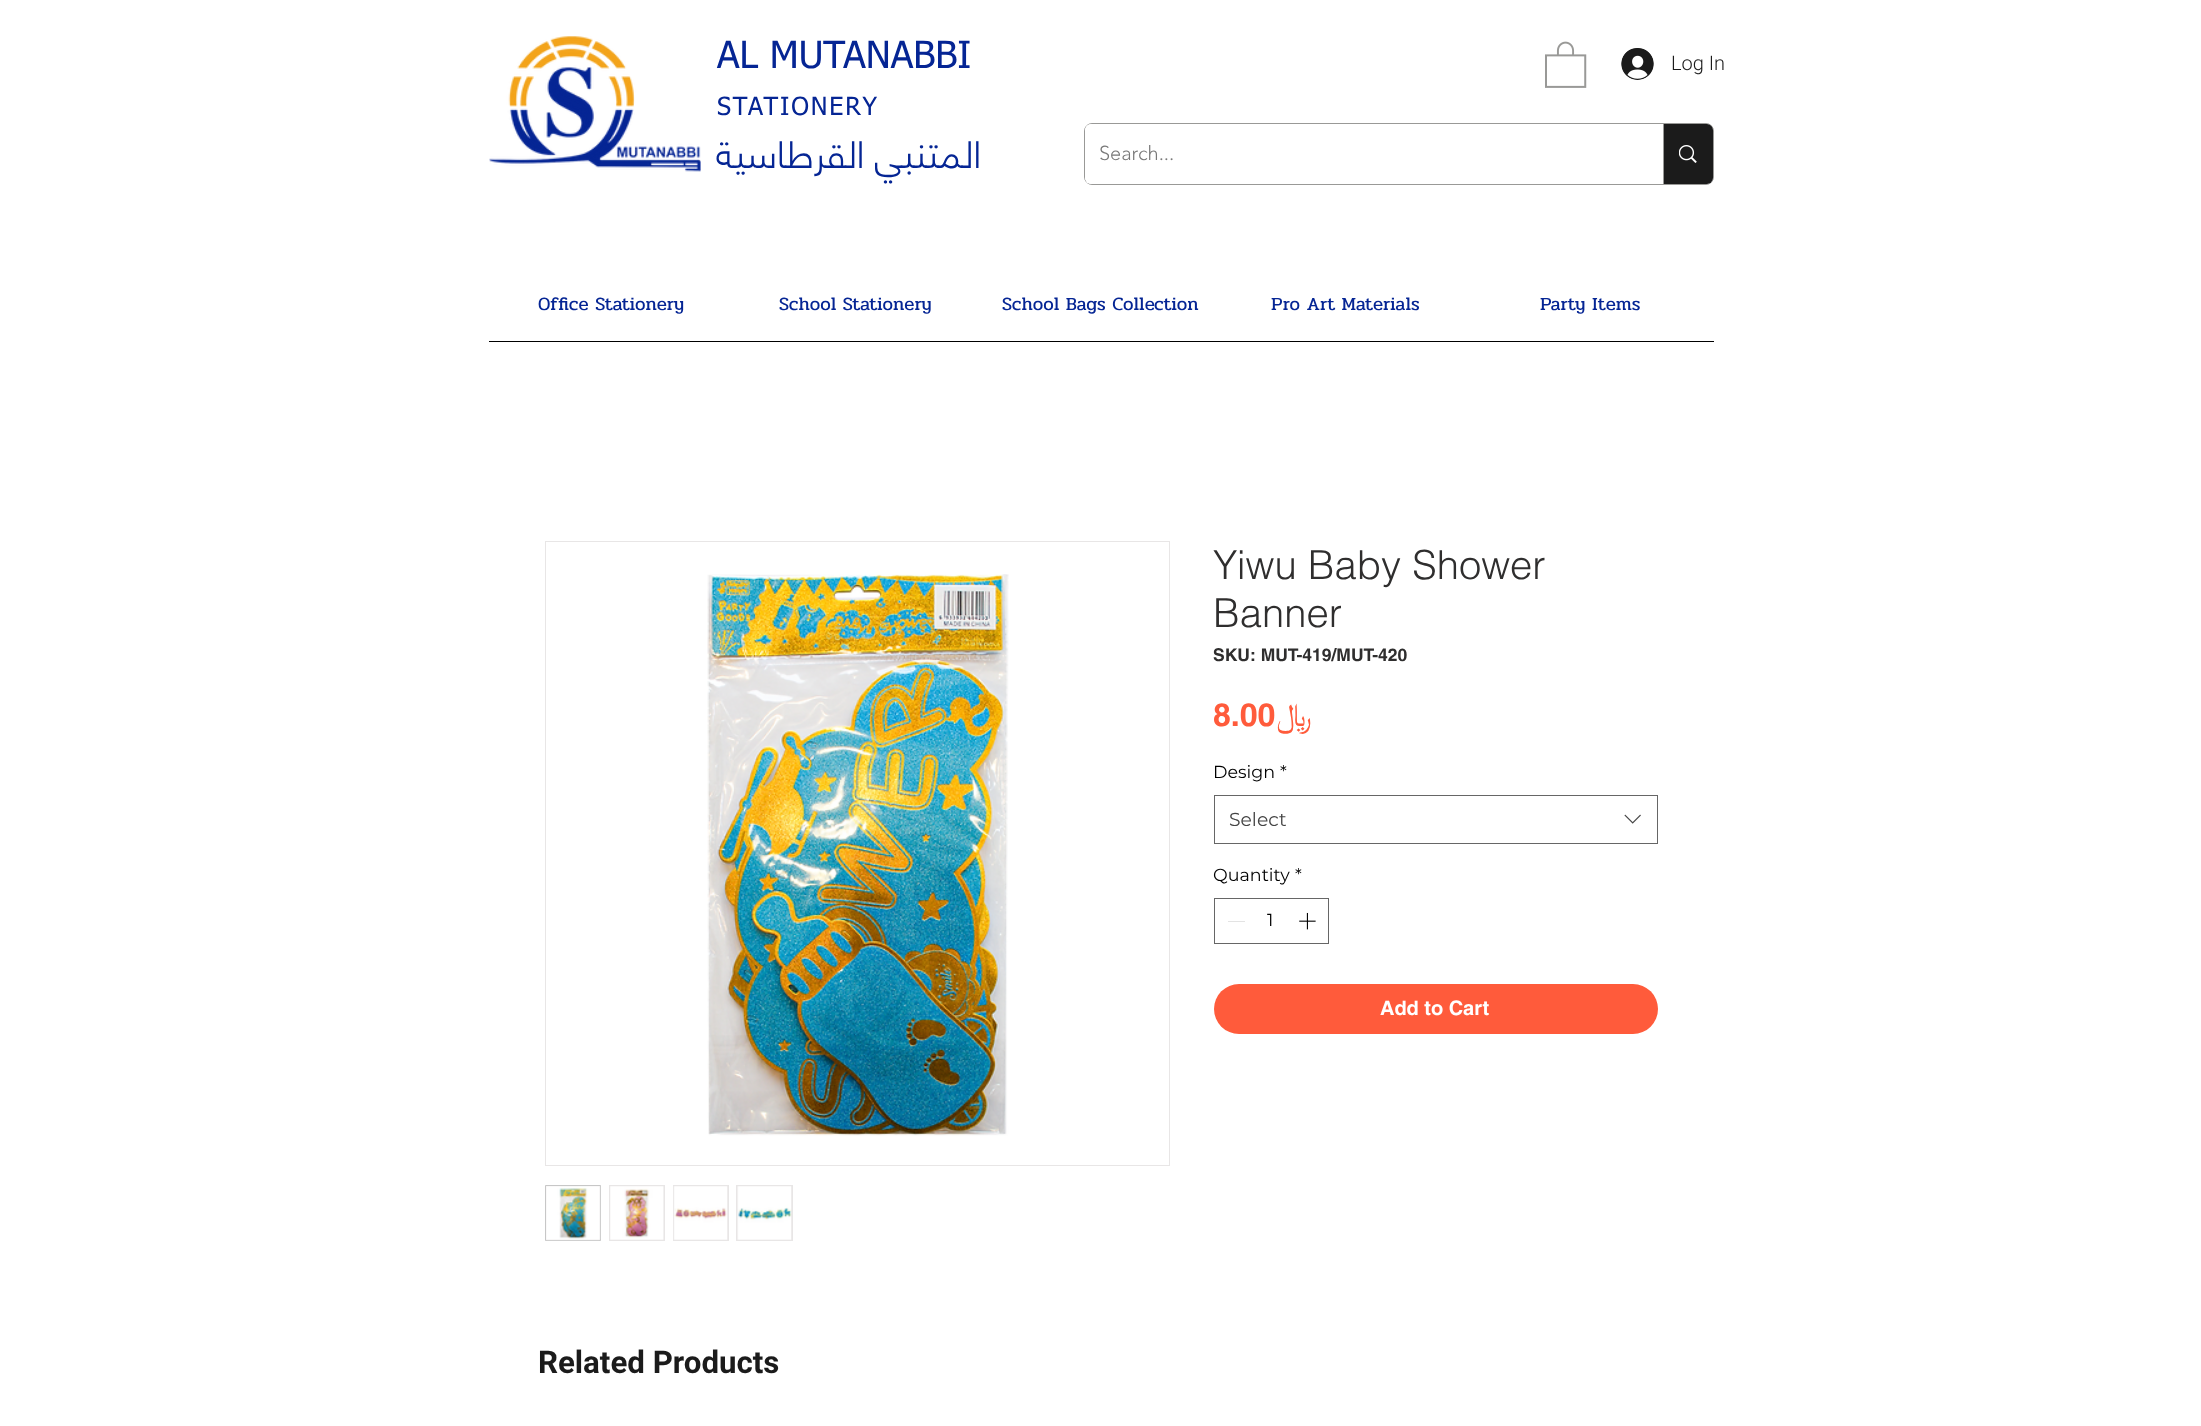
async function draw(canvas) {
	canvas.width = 2201;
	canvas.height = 1426;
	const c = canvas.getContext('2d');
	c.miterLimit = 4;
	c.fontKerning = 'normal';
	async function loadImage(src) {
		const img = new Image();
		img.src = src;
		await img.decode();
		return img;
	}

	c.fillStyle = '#fff';
	c.fillRect(0, 0, 2201, 1426);
	c.drawImage(await loadImage('img1.png'), 489, 36, 212, 136);
	c.font = '37.5px tahoma';
	c.fillStyle = '#052594';
	c.fillText('AL MUTANABBI', 717, 68);
	c.letterSpacing = '1.9px';
	c.font = '25px tahoma';
	c.fillText('STATIONERY', 717, 115);
	c.letterSpacing = '0px';
	c.direction = 'rtl';
	c.font = '300 37.5px "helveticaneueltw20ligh"';
	c.fillText('المتنبي القرطاسية', 981, 168);
	c.drawImage(await loadImage('img2.png'), 1545, 41, 42, 47);
	c.drawImage(await loadImage('img3.png'), 1621, 48, 33, 32);
	c.direction = 'ltr';
	c.font = '300 20px Heebo';
	c.fillStyle = '#1b1b1b';
	c.fillText('Log In', 1671, 70);
	c.beginPath();
	c.roundRect(1084.5, 123.5, 629, 61, 7.5);
	c.strokeStyle = '#999997';
	c.stroke();
	c.fillStyle = '#fff';
	c.beginPath();
	c.roundRect(1085, 124, 628, 60, 6);
	c.fill();
	c.font = '300 20px "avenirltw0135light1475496"';
	c.fillStyle = '#787878';
	c.fillText('Search...', 1099, 160);
	c.fillStyle = '#1b1b1b';
	c.beginPath();
	c.roundRect(1663, 124, 50, 60, [0, 6, 6, 0]);
	c.fill();
	c.fillStyle = '#999997';
	c.fillRect(1663, 124, 1, 60);
	c.drawImage(await loadImage('img4.png'), 1679, 145, 18, 18);
	c.font = '18.75px Pridi';
	c.fillStyle = '#052594';
	for (const [text, x, y] of [
		['Office Stationery', 538, 310],
		['School Stationery', 779, 310],
		['School Bags Collection', 1002, 310],
		['Pro Art Materials', 1271, 310],
		['Party Items', 1540, 310],
	]) {
		c.fillText(text, x, y);
	}
	c.fillStyle = '#000';
	c.fillRect(489, 341, 1225, 1);
	c.strokeStyle = '#e8e6e6';
	c.strokeRect(545.5, 541.5, 624, 624);
	c.drawImage(await loadImage('img5.png'), 707, 574, 302, 562);
	c.fillStyle = '#e8e6e6';
	c.beginPath();
	c.rect(545.5, 1185.5, 55, 55);
	c.fill();
	c.strokeStyle = '#c7c7c7';
	c.stroke();
	c.drawImage(await loadImage('img6.png'), 546, 1186, 55, 55);
	c.fillRect(609, 1185, 56, 56);
	c.drawImage(await loadImage('img7.png'), 610, 1186, 54, 54);
	c.fillRect(673, 1185, 56, 56);
	c.drawImage(await loadImage('img8.png'), 673, 1186, 55, 54);
	c.fillRect(736, 1185, 57, 56);
	c.drawImage(await loadImage('img9.png'), 737, 1186, 55, 54);
	c.font = '300 40px helvetica';
	c.fillStyle = '#2f2e2e';
	c.fillText('Yiwu Baby Shower', 1213, 579);
	c.fillText('Banner', 1213, 627);
	c.font = 'bold 17.5px helvetica';
	c.fillText('SKU: MUT-419/MUT-420', 1213, 661);
	c.font = 'bold 32px helvetica';
	c.fillStyle = '#ff5b3b';
	c.fillText('8.00', 1213, 726);
	c.direction = 'rtl';
	c.font = '32px FreeSerif';
	c.fillText('﷼', 1312, 726);
	c.direction = 'ltr';
	c.font = '17.5px Montserrat';
	c.fillStyle = '#000';
	c.fillText('Design', 1213, 778);
	c.fillText('*', 1280, 778);
	c.strokeStyle = '#666';
	c.strokeRect(1214.5, 795.5, 443, 48);
	c.font = '18.75px Montserrat';
	c.fillStyle = '#444';
	c.fillText('Select', 1229, 826);
	c.drawImage(await loadImage('img10.png'), 1624, 814, 17, 10);
	c.font = '17.5px Montserrat';
	c.fillStyle = '#000';
	c.fillText('Quantity', 1213, 881);
	c.fillText('*', 1295, 881);
	c.strokeRect(1214.5, 898.5, 114, 45);
	c.fillStyle = '#e3e3e3';
	c.fillRect(1228, 921, 17, 1);
	c.fillStyle = '#000';
	c.fillText('1', 1267, 926);
	c.drawImage(await loadImage('img11.png'), 1299, 912, 17, 18);
	c.fillStyle = '#ff5b3b';
	c.beginPath();
	c.roundRect(1214, 984, 444, 50, 25);
	c.fill();
	c.font = 'bold 20px helvetica';
	c.fillStyle = '#fff';
	c.fillText('Add to Cart', 1380, 1015);
	c.font = 'bold 31.25px Roboto';
	c.fillStyle = '#1b1b1b';
	c.fillText('Related Products', 538, 1373);
}

draw(document.querySelector('canvas'));
